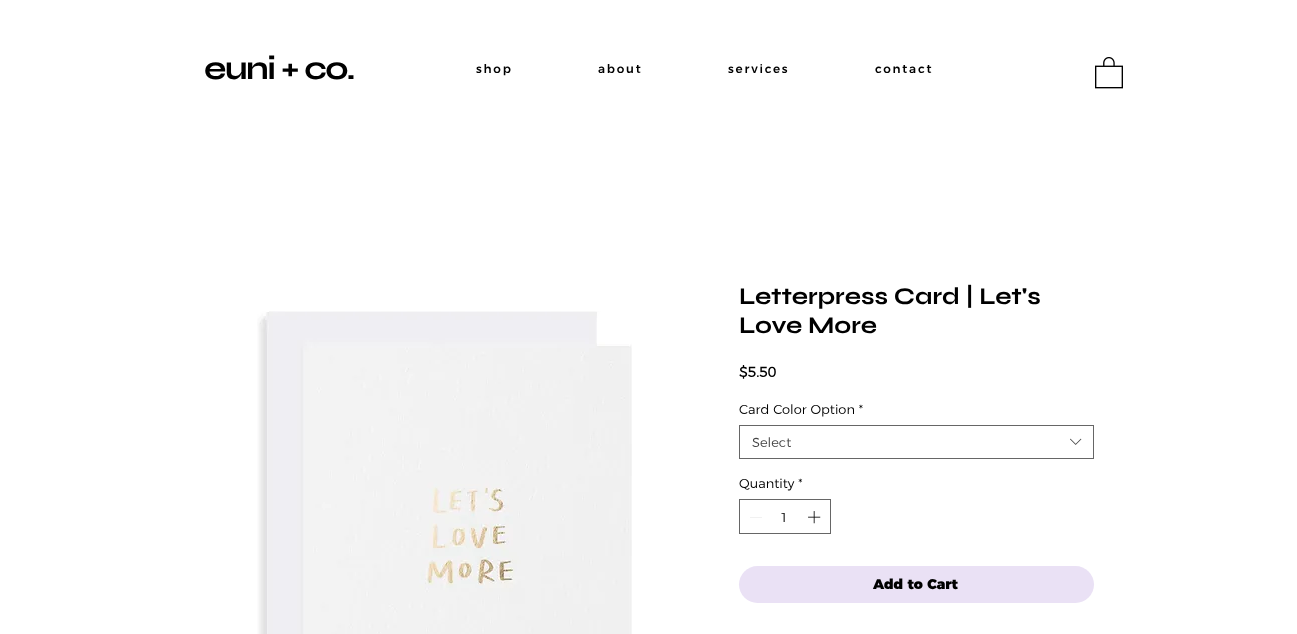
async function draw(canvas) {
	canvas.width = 1297;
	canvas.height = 634;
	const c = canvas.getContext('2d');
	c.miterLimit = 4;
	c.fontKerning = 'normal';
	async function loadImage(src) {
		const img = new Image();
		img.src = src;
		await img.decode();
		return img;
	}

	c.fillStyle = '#fff';
	c.fillRect(0, 0, 1297, 634);
	c.letterSpacing = '-1.6px';
	c.font = 'bold 33px Syne';
	c.fillStyle = '#000';
	c.fillText('euni + co.', 204, 79);
	c.letterSpacing = '1.75px';
	c.font = '500 12px Montserrat';
	for (const [text, x, y] of [
		['shop', 476, 73],
		['about', 598, 73],
		['services', 728, 73],
		['contact', 875, 73],
	]) {
		c.fillText(text, x, y);
	}
	c.drawImage(await loadImage('img1.png'), 1095, 57, 28, 32);
	c.drawImage(await loadImage('img2.png'), 257, 311, 375, 323);
	c.letterSpacing = '0px';
	c.font = 'bold 24px Syne';
	c.fillText('Letterpress Card | Let\'s', 739, 304);
	c.fillText('Love More', 739, 333);
	c.font = 'bold 14px Montserrat';
	c.fillText('$5.50', 739, 377);
	c.font = '300 13px Montserrat';
	c.fillText('Card Color Option *', 739, 414);
	c.strokeStyle = '#666';
	c.strokeRect(739.5, 425.5, 354, 33);
	c.fillStyle = '#444';
	c.fillText('Select', 752, 447);
	c.drawImage(await loadImage('img3.png'), 1070, 438, 12, 7);
	c.fillStyle = '#000';
	c.fillText('Quantity *', 739, 488);
	c.strokeRect(739.5, 499.5, 91, 34);
	c.fillStyle = '#e3e3e3';
	c.beginPath();
	c.moveTo(762, 517);
	c.lineTo(762, 517.5);
	c.lineTo(750, 517.5);
	c.lineTo(750, 517);
	c.closePath();
	c.fill('evenodd');
	c.fillStyle = '#000';
	c.fillText('1', 780, 522);
	c.drawImage(await loadImage('img4.png'), 808, 511, 13, 13);
	c.fillStyle = '#eae1f5';
	c.beginPath();
	c.roundRect(739, 566, 355, 37, 18.5);
	c.fill();
	c.font = '900 14px Montserrat';
	c.fillStyle = '#000';
	c.fillText('Add to Cart', 873, 589);
}

draw(document.querySelector('canvas'));
